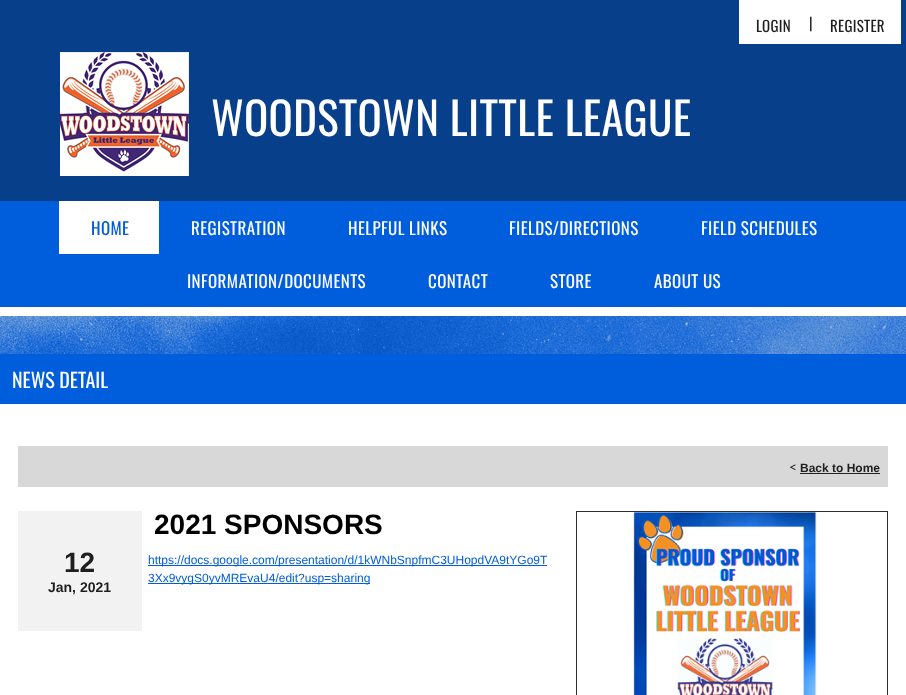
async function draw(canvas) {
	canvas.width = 906;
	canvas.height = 695;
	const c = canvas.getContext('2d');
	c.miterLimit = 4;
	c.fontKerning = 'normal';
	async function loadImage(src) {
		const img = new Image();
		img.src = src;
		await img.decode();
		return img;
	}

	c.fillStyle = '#073f8a';
	c.fillRect(0, 0, 906, 695);
	c.fillStyle = '#fff';
	c.fillRect(739, 0, 162, 44);
	c.letterSpacing = '0.25px';
	c.font = '15px Oswald';
	c.fillStyle = '#1f1f1f';
	c.fillText('LOGIN', 756, 32);
	c.letterSpacing = '0px';
	c.fillText('|', 809, 29);
	c.letterSpacing = '0.25px';
	c.fillText('REGISTER', 830, 32);
	c.drawImage(await loadImage('img1.png'), 60, 52, 129, 124);
	c.letterSpacing = '0.3px';
	c.font = '45px Oswald';
	c.fillStyle = '#fff';
	c.fillText('WOODSTOWN LITTLE LEAGUE', 211, 136);
	for (const [x, y, w, h, color] of [
		[0, 201, 906, 106, '#005ddb'],
		[0, 307, 906, 9, '#fff'],
		[59, 201, 100, 53, '#fff'],
	]) {
		c.fillStyle = color;
		c.fillRect(x, y, w, h);
	}
	c.letterSpacing = '0.4px';
	c.font = '17px Oswald';
	c.fillStyle = '#005ddb';
	c.fillText('HOME', 91, 235);
	c.fillStyle = '#fff';
	for (const [text, x, y] of [
		['REGISTRATION', 191, 235],
		['HELPFUL LINKS', 348, 235],
		['FIELDS/DIRECTIONS', 509, 235],
		['FIELD SCHEDULES', 701, 235],
		['INFORMATION/DOCUMENTS', 187, 288],
		['CONTACT', 428, 288],
		['STORE', 550, 288],
		['ABOUT US', 654, 288],
	]) {
		c.fillText(text, x, y);
	}
	c.drawImage(await loadImage('img2.png'), 0, 316, 906, 38);
	c.fillStyle = '#005ddb';
	c.fillRect(0, 354, 906, 50);
	c.letterSpacing = '0px';
	c.font = '20px Oswald';
	c.fillStyle = '#fff';
	c.fillText('NEWS DETAIL', 12, 388);
	c.fillRect(0, 404, 906, 291);
	c.fillStyle = '#d8d8d8';
	c.fillRect(18, 446, 870, 41);
	c.font = '14px Lato';
	c.fillStyle = '#1f1f1f';
	c.fillText('<', 789, 472);
	c.font = 'bold 12px Liberation Sans';
	c.fillText('Back to Home', 800, 472);
	c.fillStyle = '#222';
	c.fillRect(800, 473, 80, 1);
	c.font = 'bold 28px Liberation Sans';
	c.fillStyle = '#000';
	c.fillText('2021 SPONSORS', 154, 534);
	c.strokeStyle = '#303030';
	c.strokeRect(576.5, 511.5, 311, 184);
	c.drawImage(await loadImage('img3.png'), 633, 512, 184, 183);
	c.fillStyle = '#f2f2f2';
	c.fillRect(18, 511, 124, 120);
	c.fillStyle = '#1f1f1f';
	c.fillText('12', 64, 572);
	c.font = 'bold 14px Liberation Sans';
	c.fillText('Jan, 2021', 48, 592);
	c.fillStyle = '#005ddb';
	c.fillRect(148, 565, 399, 1);
	c.font = '12px Liberation Sans';
	c.fillText('https://docs.google.com/presentation/d/1kWNbSnpfmC3UHopdVA9tYGo9T', 148, 564);
	c.fillRect(148, 583, 222, 1);
	c.fillText('3Xx9vygS0yvMREvaU4/edit?usp=sharing', 148, 582);
}

draw(document.querySelector('canvas'));
